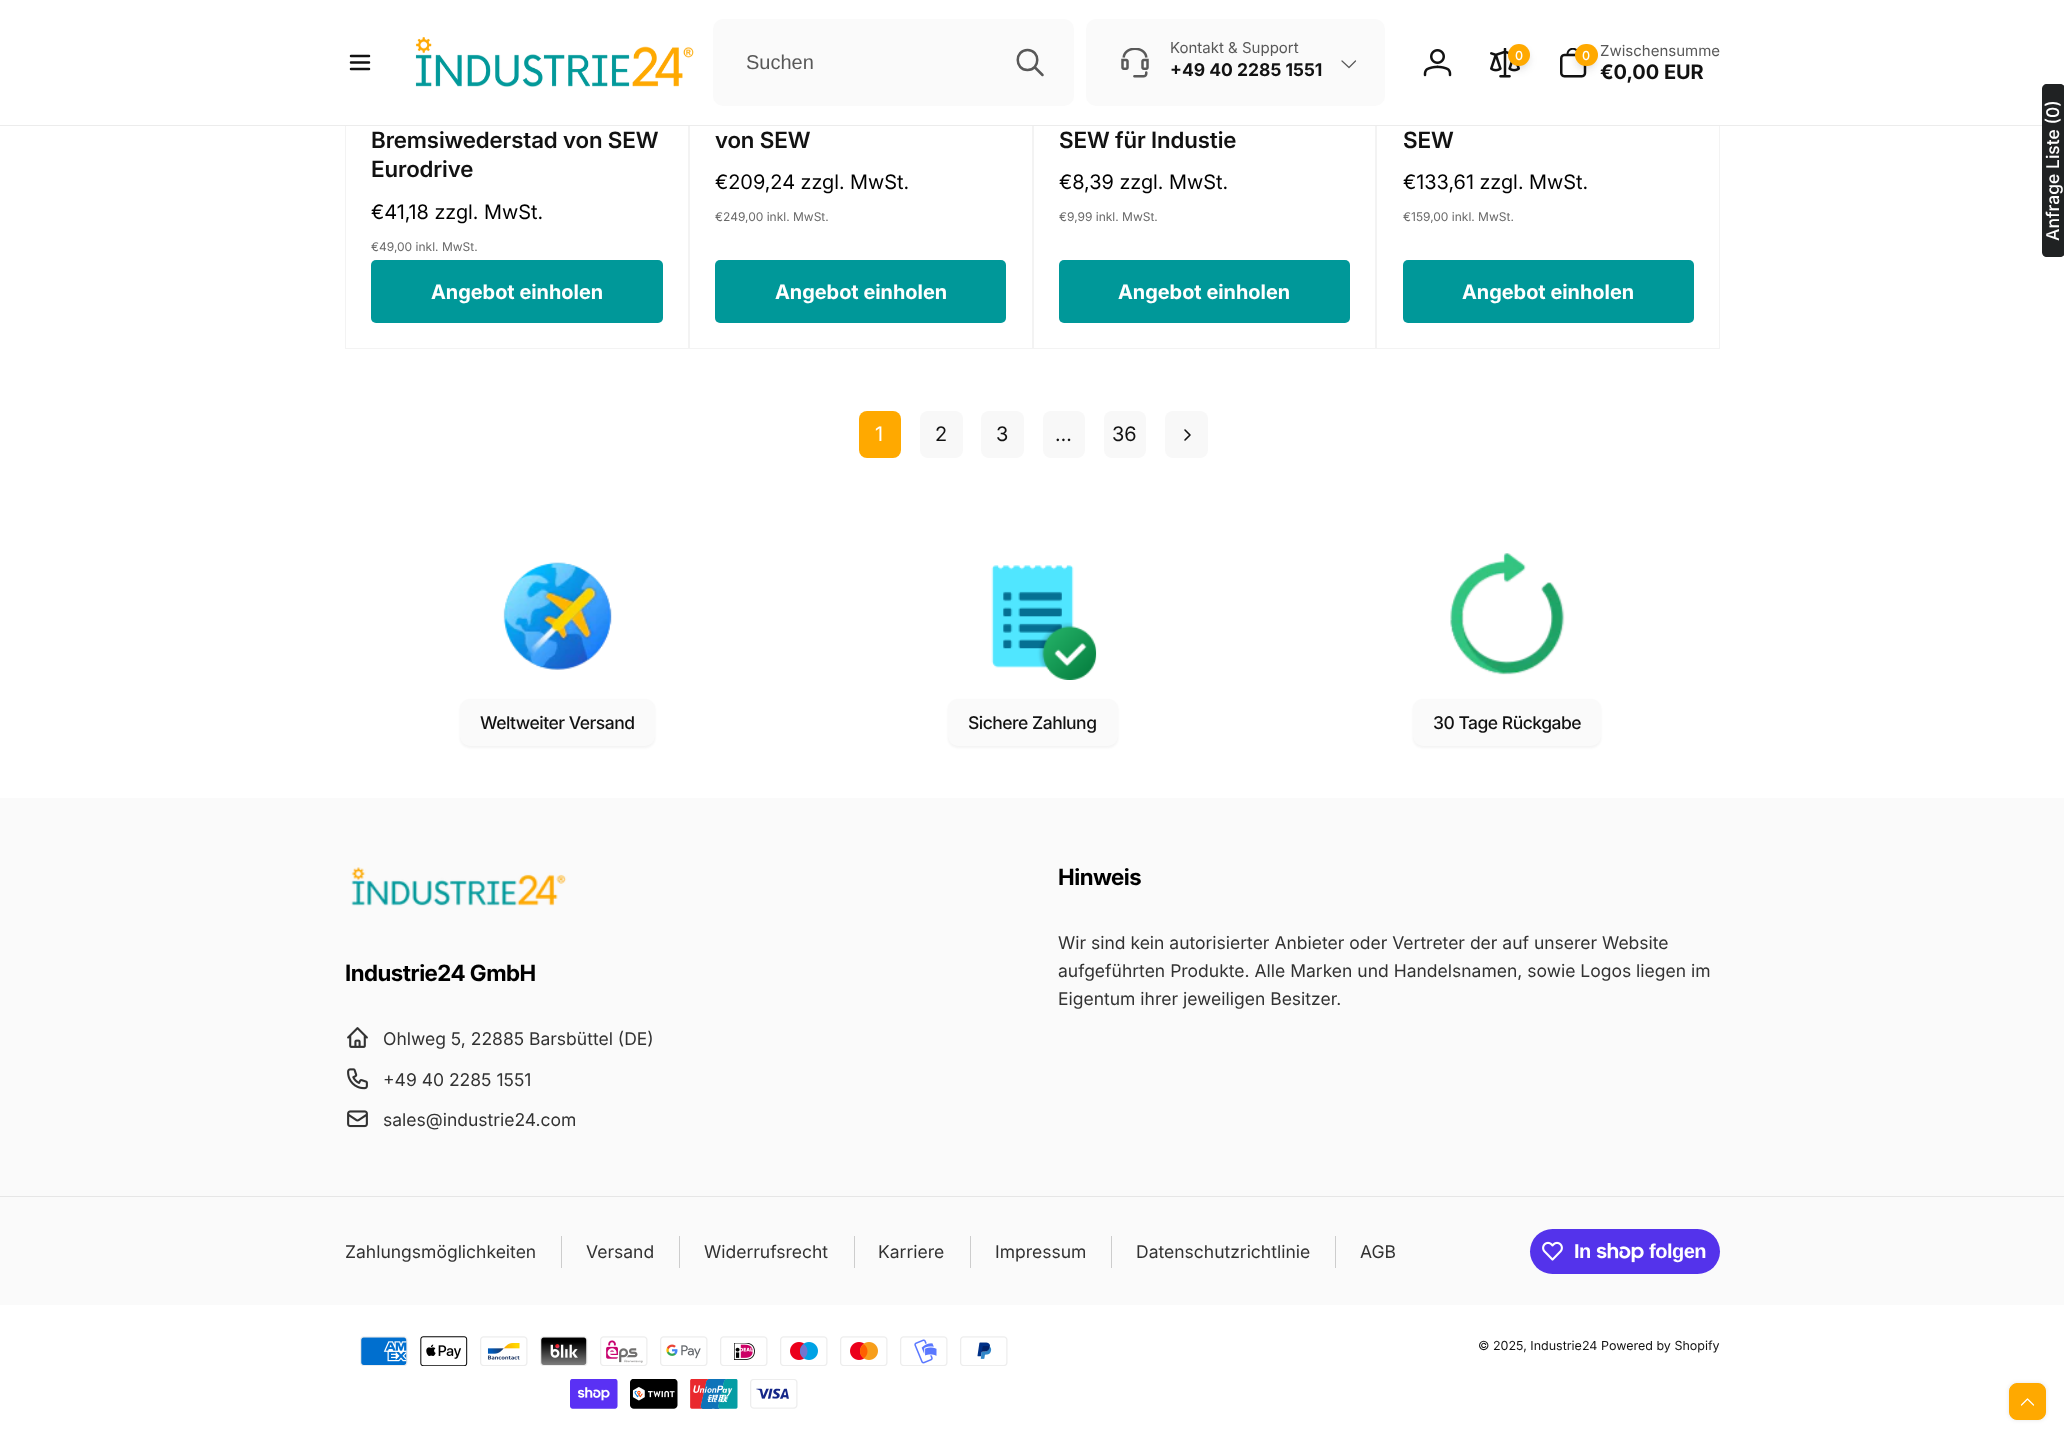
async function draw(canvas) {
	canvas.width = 2064;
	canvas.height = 1440;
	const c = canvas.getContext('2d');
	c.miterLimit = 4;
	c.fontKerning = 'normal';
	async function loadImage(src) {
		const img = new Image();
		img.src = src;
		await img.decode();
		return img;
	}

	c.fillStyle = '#fff';
	c.fillRect(0, 0, 2064, 1440);
	c.strokeStyle = '#f3f3f3';
	c.strokeRect(345.5, -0.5, 343, 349);
	c.strokeRect(689.5, -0.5, 343, 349);
	c.strokeRect(1033.5, -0.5, 342, 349);
	c.strokeRect(1376.5, -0.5, 343, 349);
	c.fillRect(345, 0, 1375, 125);
	c.fillStyle = '#ececec';
	c.fillRect(0, 125, 2042, 1);
	c.beginPath();
	c.moveTo(351, 56);
	c.lineTo(369, 56);
	c.moveTo(351, 62.5);
	c.lineTo(369, 62.5);
	c.moveTo(351, 69);
	c.lineTo(369, 69);
	c.strokeStyle = '#121212';
	c.lineWidth = 2.5;
	c.lineCap = 'round';
	c.stroke();
	c.drawImage(await loadImage('img1.png'), 415, 37, 279, 50);
	c.fillStyle = '#fafafa';
	c.beginPath();
	c.roundRect(713, 19, 361, 87, 10);
	c.fill();
	c.font = '20px Liberation Sans';
	c.fillStyle = '#585858';
	c.fillText('Suchen', 746, 69);
	c.beginPath();
	c.moveTo(1042.5, 75);
	c.lineTo(1034.5, 67);
	c.moveTo(1027.5, 70);
	c.bezierCurveTo(1040.5, 70, 1040.5, 50, 1027.5, 50);
	c.bezierCurveTo(1014.5, 50, 1014.5, 70, 1027.5, 70);
	c.closePath();
	c.strokeStyle = '#585858';
	c.lineJoin = 'round';
	c.stroke();
	c.fillStyle = '#fafafa';
	c.beginPath();
	c.roundRect(1086, 19, 299, 87, 10);
	c.fill();
	c.drawImage(await loadImage('img2.png'), 1121, 48, 28, 30);
	c.font = '15px Inter';
	c.fillStyle = '#585858';
	c.fillText('Kontakt & Support', 1170, 53);
	c.font = 'bold 17.5px "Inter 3"';
	c.fillStyle = '#121212';
	c.fillText('+49 40 2285 1551', 1170, 76);
	c.beginPath();
	c.moveTo(1355.5, 61);
	c.lineTo(1349, 67.5);
	c.lineTo(1342, 61);
	c.lineWidth = 1.2;
	c.stroke();
	c.drawImage(await loadImage('img3.png'), 1423, 49, 29, 28);
	c.drawImage(await loadImage('img4.png'), 1490, 48, 30, 30);
	c.fillStyle = '#1212120f';
	c.filter = 'blur(2.5px)';
	c.beginPath();
	c.roundRect(1509, 48, 20, 20, 10);
	c.fill();
	c.filter = 'none';
	c.fillStyle = '#1212121a';
	c.filter = 'blur(4px)';
	c.beginPath();
	c.roundRect(1509, 50, 20, 20, 10);
	c.fill();
	c.filter = 'none';
	c.fillStyle = '#ffa900';
	c.beginPath();
	c.arc(1519, 55, 11, 0, 2 * Math.PI);
	c.fill();
	c.font = '500 12.5px Inter';
	c.fillStyle = '#fff';
	c.fillText('0', 1515, 60);
	c.drawImage(await loadImage('img5.png'), 1560, 48, 27, 30);
	c.fillStyle = '#1212120f';
	c.filter = 'blur(2.5px)';
	c.beginPath();
	c.roundRect(1576, 48, 20, 20, 10);
	c.fill();
	c.filter = 'none';
	c.fillStyle = '#1212121a';
	c.filter = 'blur(4px)';
	c.beginPath();
	c.roundRect(1576, 50, 20, 20, 10);
	c.fill();
	c.filter = 'none';
	c.fillStyle = '#ffa900';
	c.beginPath();
	c.roundRect(1575, 44, 23, 22, 11);
	c.fill();
	c.fillStyle = '#fff';
	c.fillText('0', 1582, 60);
	c.font = '15px Inter';
	c.fillStyle = '#585858';
	c.fillText('Zwischensumme', 1600, 56);
	c.font = 'bold 20px "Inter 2"';
	c.fillStyle = '#121212';
	c.fillText('€0,00 EUR', 1600, 79);
	c.letterSpacing = '-0.1px';
	c.font = '600 22.5px Inter';
	c.fillText('Bremsiwederstad von SEW', 371, 148);
	c.fillText('Eurodrive', 371, 177);
	c.letterSpacing = '0px';
	c.font = '20px "Inter 2"';
	c.fillStyle = '#000';
	c.fillText('€41,18 zzgl. MwSt.', 371, 219);
	c.font = '12px Inter';
	c.fillStyle = '#696969';
	c.fillText('€49,00 inkl. MwSt.', 371, 251);
	c.fillStyle = '#009899';
	c.beginPath();
	c.roundRect(371, 260, 292, 63, 5);
	c.fill();
	c.font = 'bold 20px "Inter 2"';
	c.fillStyle = '#fff';
	c.fillText('Angebot einholen', 431, 299);
	c.letterSpacing = '-0.1px';
	c.font = '600 22.5px Inter';
	c.fillStyle = '#121212';
	c.fillText('von SEW', 715, 148);
	c.letterSpacing = '0px';
	c.font = '20px "Inter 2"';
	c.fillStyle = '#000';
	c.fillText('€209,24 zzgl. MwSt.', 715, 189);
	c.font = '12px Inter';
	c.fillStyle = '#696969';
	c.fillText('€249,00 inkl. MwSt.', 715, 221);
	c.fillStyle = '#009899';
	c.beginPath();
	c.roundRect(715, 260, 291, 63, 5);
	c.fill();
	c.font = 'bold 20px "Inter 2"';
	c.fillStyle = '#fff';
	c.fillText('Angebot einholen', 775, 299);
	c.letterSpacing = '-0.1px';
	c.font = '600 22.5px Inter';
	c.fillStyle = '#121212';
	c.fillText('SEW für Industie', 1059, 148);
	c.letterSpacing = '0px';
	c.font = '20px "Inter 2"';
	c.fillStyle = '#000';
	c.fillText('€8,39 zzgl. MwSt.', 1059, 189);
	c.font = '12px Inter';
	c.fillStyle = '#696969';
	c.fillText('€9,99 inkl. MwSt.', 1059, 221);
	c.fillStyle = '#009899';
	c.beginPath();
	c.roundRect(1059, 260, 291, 63, 5);
	c.fill();
	c.font = 'bold 20px "Inter 2"';
	c.fillStyle = '#fff';
	c.fillText('Angebot einholen', 1118, 299);
	c.letterSpacing = '-0.1px';
	c.font = '600 22.5px Inter';
	c.fillStyle = '#121212';
	c.fillText('SEW', 1403, 148);
	c.letterSpacing = '0px';
	c.font = '20px "Inter 2"';
	c.fillStyle = '#000';
	c.fillText('€133,61 zzgl. MwSt.', 1403, 189);
	c.font = '12px Inter';
	c.fillStyle = '#696969';
	c.fillText('€159,00 inkl. MwSt.', 1403, 221);
	c.fillStyle = '#009899';
	c.beginPath();
	c.roundRect(1403, 260, 291, 63, 5);
	c.fill();
	c.font = 'bold 20px "Inter 2"';
	c.fillStyle = '#fff';
	c.fillText('Angebot einholen', 1462, 299);
	c.fillStyle = '#ffa900';
	c.beginPath();
	c.roundRect(859, 411, 42, 47, 8);
	c.fill();
	c.font = '20px "Inter 2"';
	c.fillStyle = '#fff';
	c.fillText('1', 875, 441);
	c.fillStyle = '#f8f8f8';
	c.beginPath();
	c.roundRect(920, 411, 43, 47, 8);
	c.fill();
	c.fillStyle = '#121212';
	c.fillText('2', 935, 441);
	c.fillStyle = '#f8f8f8';
	c.beginPath();
	c.roundRect(981, 411, 43, 47, 8);
	c.fill();
	c.fillStyle = '#121212';
	c.fillText('3', 996, 441);
	c.fillStyle = '#f8f8f8';
	c.beginPath();
	c.roundRect(1043, 411, 42, 47, 8);
	c.fill();
	c.fillStyle = '#121212';
	c.fillText('…', 1055, 441);
	c.fillStyle = '#f8f8f8';
	c.beginPath();
	c.roundRect(1104, 411, 42, 47, 8);
	c.fill();
	c.fillStyle = '#121212';
	c.fillText('36', 1112, 441);
	c.fillStyle = '#f8f8f8';
	c.beginPath();
	c.roundRect(1165, 411, 43, 47, 8);
	c.fill();
	c.beginPath();
	c.moveTo(1185, 440);
	c.lineTo(1190, 435);
	c.lineTo(1185, 430);
	c.strokeStyle = '#121212';
	c.lineWidth = 1.6;
	c.stroke();
	c.drawImage(await loadImage('img6.png'), 503, 562, 109, 108);
	c.fillStyle = '#1212120d';
	c.filter = 'blur(1px)';
	c.beginPath();
	c.roundRect(460, 700, 195, 48, 10);
	c.fill();
	c.filter = 'none';
	c.fillStyle = '#fafafa';
	c.beginPath();
	c.roundRect(460, 699, 195, 47, 10);
	c.fill();
	c.letterSpacing = '-0.5px';
	c.font = '500 17.5px Inter';
	c.fillStyle = '#121212';
	c.fillText('Weltweiter Versand', 480, 729);
	c.drawImage(await loadImage('img7.png'), 991, 565, 106, 115);
	c.fillStyle = '#1212120d';
	c.filter = 'blur(1px)';
	c.beginPath();
	c.roundRect(948, 700, 170, 48, 10);
	c.fill();
	c.filter = 'none';
	c.fillStyle = '#fafafa';
	c.beginPath();
	c.roundRect(948, 699, 170, 47, 10);
	c.fill();
	c.fillStyle = '#121212';
	c.fillText('Sichere Zahlung', 968, 729);
	c.drawImage(await loadImage('img8.png'), 1450, 553, 115, 122);
	c.fillStyle = '#1212120d';
	c.filter = 'blur(1px)';
	c.beginPath();
	c.roundRect(1413, 700, 188, 48, 10);
	c.fill();
	c.filter = 'none';
	c.fillStyle = '#fafafa';
	c.beginPath();
	c.roundRect(1413, 699, 188, 47, 10);
	c.fill();
	c.fillStyle = '#121212';
	c.fillText('30 Tage Rückgabe', 1433, 729);
	c.fillStyle = '#202223';
	c.beginPath();
	c.moveTo(2042, 252);
	c.lineTo(2042, 89);
	c.bezierCurveTo(2042, 86, 2044, 84, 2047, 84);
	c.lineTo(2060, 84);
	c.bezierCurveTo(2063, 84, 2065, 86, 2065, 89);
	c.lineTo(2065, 252);
	c.bezierCurveTo(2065, 255, 2063, 257, 2060, 257);
	c.lineTo(2047, 257);
	c.bezierCurveTo(2044, 257, 2042, 255, 2042, 252);
	c.closePath();
	c.fill();
	c.letterSpacing = '0px';
	c.fillStyle = '#fff';
	c.save();
	c.translate(2059, 241);
	c.rotate(-90 * Math.PI / 180);
	c.fillText('Anfrage Liste (0)', 0, 0);
	c.restore();
	c.fillStyle = '#fafafa';
	c.fillRect(0, 798, 2064, 507);
	c.letterSpacing = '-0.5px';
	c.font = 'bold 22.5px Inter';
	c.fillStyle = '#000';
	c.fillText('Hinweis', 1058, 885);
	c.letterSpacing = '0px';
	c.font = '17.5px Inter';
	c.fillStyle = '#323232';
	for (const [text, x, y] of [
		['Wir sind kein autorisierter Anbieter oder Vertreter der auf unserer Website', 1058, 949],
		['aufgeführten Produkte. Alle Marken und Handelsnamen, sowie Logos liegen im', 1058, 977],
		['Eigentum ihrer jeweiligen Besitzer.', 1058, 1005],
	]) {
		c.fillText(text, x, y);
	}
	c.drawImage(await loadImage('img9.png'), 351, 867, 216, 39);
	c.letterSpacing = '-0.5px';
	c.font = 'bold 22.5px Inter';
	c.fillStyle = '#000';
	c.fillText('Industrie24 GmbH', 345, 981);
	c.drawImage(await loadImage('img10.png'), 347, 1027, 21, 21);
	c.letterSpacing = '0px';
	c.font = '17.5px Inter';
	c.fillStyle = '#323232';
	c.fillText('Ohlweg 5, 22885 Barsbüttel (DE)', 383, 1045);
	c.drawImage(await loadImage('img11.png'), 347, 1068, 21, 22);
	c.fillText('+49 40 2285 1551', 383, 1086);
	c.drawImage(await loadImage('img12.png'), 347, 1110, 21, 18);
	c.fillText('sales@industrie24.com', 383, 1126);
	c.fillStyle = '#e6e6e6';
	c.fillRect(0, 1196, 2064, 1);
	c.fillStyle = '#323232';
	c.fillText('Zahlungsmöglichkeiten', 345, 1258);
	c.fillStyle = '#cdcdcd';
	c.fillRect(561, 1236, 1, 32);
	c.fillStyle = '#323232';
	c.fillText('Versand', 586, 1258);
	c.fillStyle = '#cdcdcd';
	c.fillRect(679, 1236, 1, 32);
	c.fillStyle = '#323232';
	c.fillText('Widerrufsrecht', 704, 1258);
	c.fillStyle = '#cdcdcd';
	c.fillRect(854, 1236, 1, 32);
	c.fillStyle = '#323232';
	c.fillText('Karriere', 878, 1258);
	c.fillStyle = '#cdcdcd';
	c.fillRect(970, 1236, 1, 32);
	c.fillStyle = '#323232';
	c.fillText('Impressum', 995, 1258);
	c.fillStyle = '#cdcdcd';
	c.fillRect(1111, 1236, 1, 32);
	c.fillStyle = '#323232';
	c.fillText('Datenschutzrichtlinie', 1136, 1258);
	c.fillStyle = '#cdcdcd';
	c.fillRect(1335, 1236, 1, 32);
	c.fillStyle = '#323232';
	c.fillText('AGB', 1360, 1258);
	c.fillStyle = '#5433eb';
	c.beginPath();
	c.roundRect(1530, 1229, 190, 45, 22.5);
	c.fill();
	c.drawImage(await loadImage('img13.png'), 1542, 1241, 21, 20);
	c.letterSpacing = '-0.5px';
	c.font = 'bold 20px Liberation Sans';
	c.fillStyle = '#fff';
	c.fillText('In', 1574, 1258);
	c.drawImage(await loadImage('img14.png'), 1596, 1243, 48, 20);
	c.fillText('folgen', 1649, 1258);
	c.drawImage(await loadImage('img15.png'), 360, 1336, 48, 30);
	c.drawImage(await loadImage('img16.png'), 420, 1336, 48, 30);
	c.drawImage(await loadImage('img17.png'), 480, 1336, 48, 30);
	c.drawImage(await loadImage('img18.png'), 540, 1336, 48, 30);
	c.drawImage(await loadImage('img19.png'), 600, 1336, 48, 30);
	c.drawImage(await loadImage('img20.png'), 660, 1336, 48, 30);
	c.drawImage(await loadImage('img21.png'), 720, 1336, 48, 30);
	c.drawImage(await loadImage('img22.png'), 780, 1336, 48, 30);
	c.drawImage(await loadImage('img23.png'), 840, 1336, 48, 30);
	c.drawImage(await loadImage('img24.png'), 900, 1336, 48, 30);
	c.drawImage(await loadImage('img25.png'), 960, 1336, 48, 30);
	c.drawImage(await loadImage('img26.png'), 570, 1379, 48, 30);
	c.drawImage(await loadImage('img27.png'), 630, 1379, 48, 30);
	c.drawImage(await loadImage('img28.png'), 690, 1379, 48, 30);
	c.drawImage(await loadImage('img29.png'), 750, 1379, 48, 30);
	c.letterSpacing = '0px';
	c.font = '12.5px Inter';
	c.fillStyle = '#121212';
	c.fillText('© 2025, Industrie24', 1478, 1350);
	c.fillText('Powered by Shopify', 1601, 1350);
	c.fillStyle = '#0000001a';
	c.filter = 'blur(2px)';
	c.beginPath();
	c.roundRect(2009, 1383, 37, 37, 8);
	c.fill();
	c.filter = 'none';
	c.fillStyle = '#ffa900';
	c.beginPath();
	c.roundRect(2009.5, 1383.5, 36, 36, 7.5);
	c.fill();
	c.strokeStyle = '#ffa900';
	c.lineWidth = 1;
	c.lineJoin = 'miter';
	c.stroke();
	c.beginPath();
	c.moveTo(2021.5, 1405);
	c.lineTo(2027.5, 1399);
	c.lineTo(2033.5, 1405);
	c.strokeStyle = '#fff';
	c.lineWidth = 1.2;
	c.lineJoin = 'round';
	c.stroke();
}

draw(document.querySelector('canvas'));
